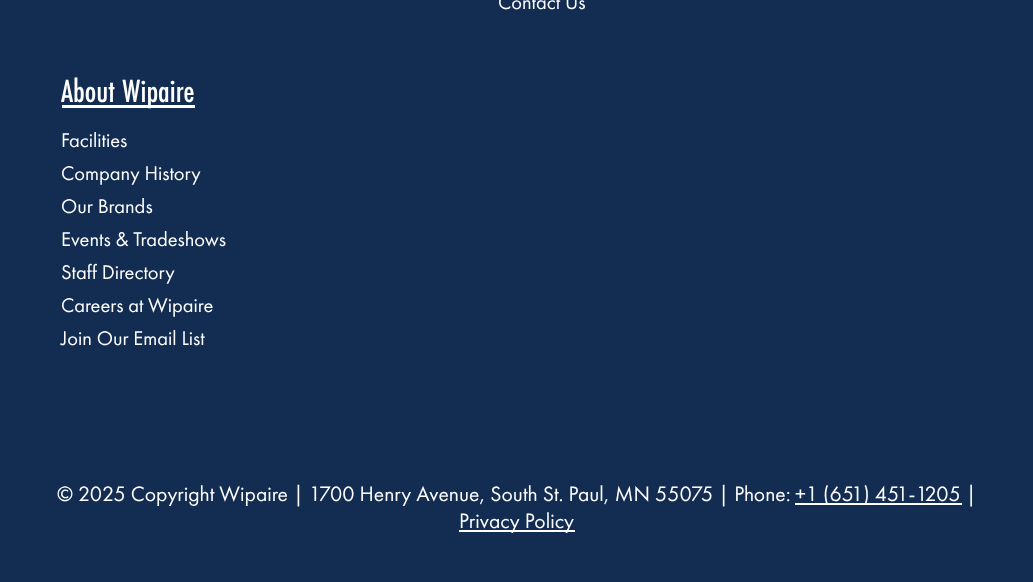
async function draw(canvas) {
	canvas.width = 1033;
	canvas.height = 582;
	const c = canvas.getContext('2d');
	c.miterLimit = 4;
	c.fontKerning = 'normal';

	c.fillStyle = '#122c52';
	c.fillRect(0, 0, 1033, 582);
	c.font = '20.5px Futura PT';
	c.fillStyle = '#fff';
	c.fillText('Contact Us', 498, 9);
	c.fillRect(62, 105, 133, 3);
	c.font = '500 33.5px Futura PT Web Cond';
	c.fillText('About Wipaire', 61, 102);
	c.font = '20.5px Futura PT';
	for (const [text, x, y] of [
		['Facilities', 61, 147],
		['Company History', 61, 180],
		['Our Brands', 61, 213],
		['Events & Tradeshows', 61, 246],
		['Staff Directory', 61, 279],
		['Careers at Wipaire', 61, 312],
		['Join Our Email List', 61, 345],
	]) {
		c.fillText(text, x, y);
	}
	c.font = '21.6px Futura PT';
	c.fillText('© 2025 Copyright Wipaire | 1700 Henry Avenue, South St. Paul, MN 55075 | Phone:', 57, 501);
	c.fillRect(795, 503, 167, 2);
	c.fillText('+1 (651) 451-1205 |', 795, 501);
	c.fillRect(459, 530, 116, 2);
	c.fillText('Privacy Policy', 459, 528);
}

draw(document.querySelector('canvas'));
